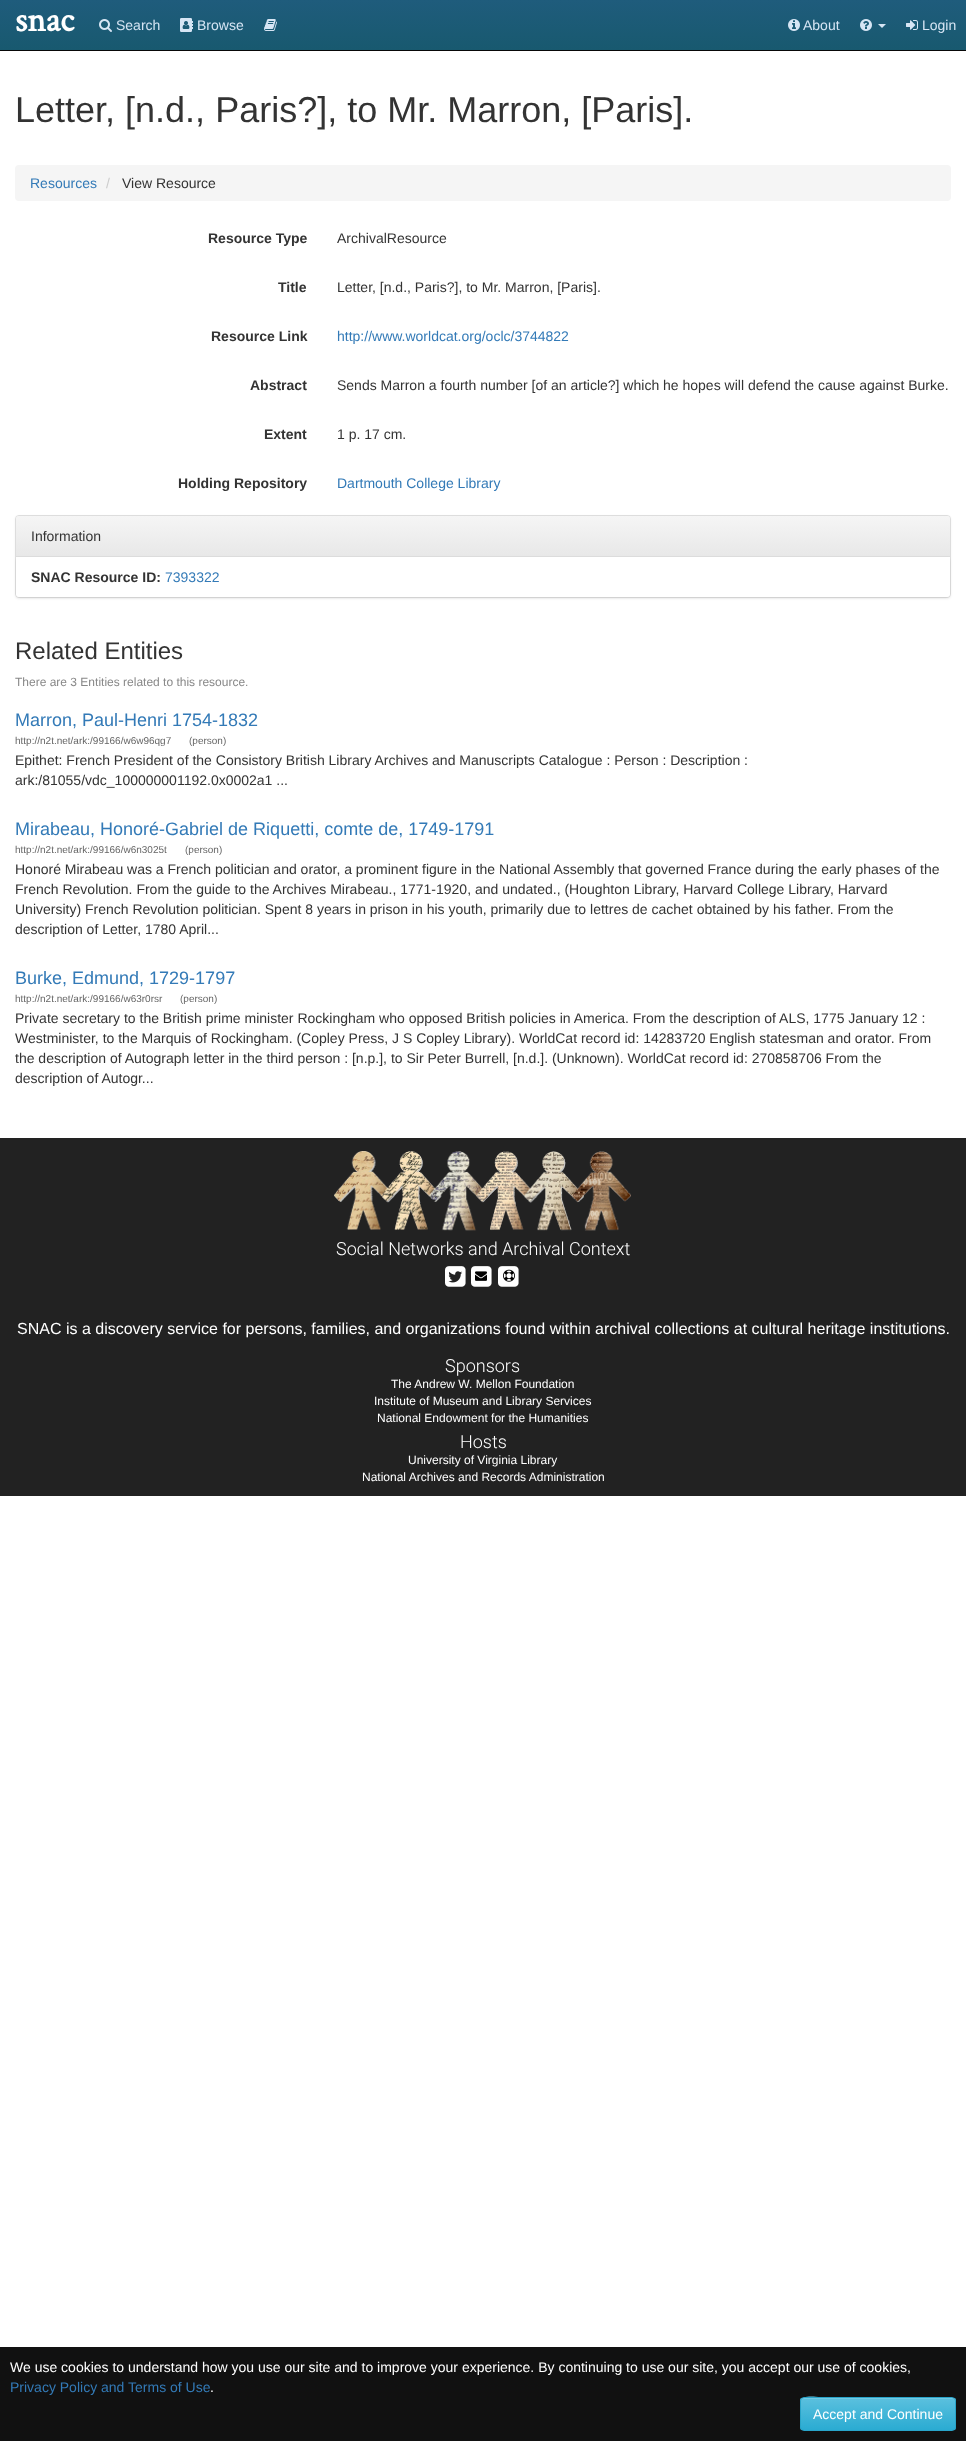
async function draw(canvas) {
	canvas.width = 966;
	canvas.height = 2441;
	const c = canvas.getContext('2d');
	c.miterLimit = 4;
	c.fontKerning = 'normal';
	async function loadImage(src) {
		const img = new Image();
		img.src = src;
		await img.decode();
		return img;
	}
	let gradient;

	c.fillStyle = '#fff';
	c.fillRect(0, 0, 966, 2441);
	gradient = c.createLinearGradient(483, 0, 483, 50);
	gradient.addColorStop(0, '#1f5c7c');
	gradient.addColorStop(1, '#18596f');
	c.fillStyle = gradient;
	c.fillRect(0, 0, 966, 50);
	c.fillStyle = '#080808';
	c.fillRect(0, 50, 966, 1);
	c.font = 'bold 35px Crimson Text';
	c.fillStyle = '#fff';
	c.fillText('snac', 15, 31);
	c.drawImage(await loadImage('img1.png'), 99, 19, 13, 13);
	c.font = '14px Liberation Sans';
	c.fillStyle = '#d6e5f4';
	c.fillText('Search', 116, 30);
	c.drawImage(await loadImage('img2.png'), 180, 18, 13, 14);
	c.fillText('Browse', 197, 30);
	c.drawImage(await loadImage('img3.png'), 264, 19, 13, 12);
	c.drawImage(await loadImage('img4.png'), 788, 19, 12, 12);
	c.fillText('About', 803, 30);
	c.drawImage(await loadImage('img5.png'), 860, 19, 12, 12);
	c.beginPath();
	c.moveTo(878, 24);
	c.lineTo(886, 24);
	c.lineTo(882, 28);
	c.closePath();
	c.fill();
	c.drawImage(await loadImage('img6.png'), 906, 20, 12, 10);
	c.fillText('Login', 922, 30);
	c.font = '36px Liberation Sans';
	c.fillStyle = '#333';
	c.fillText('Letter, [n.d., Paris?], to Mr. Marron, [Paris].', 15, 122);
	c.fillStyle = '#f5f5f5';
	c.beginPath();
	c.roundRect(15, 165, 936, 36, 4);
	c.fill();
	c.font = '14px Liberation Sans';
	c.fillStyle = '#337ab7';
	c.fillText('Resources', 30, 188);
	c.fillStyle = '#ccc';
	c.fillText('/', 106, 188);
	c.fillStyle = '#333';
	c.fillText('View Resource', 122, 188);
	c.font = 'bold 14px Liberation Sans';
	c.fillText('Resource Type', 208, 243);
	c.font = '14px Liberation Sans';
	c.fillText('ArchivalResource', 337, 243);
	c.font = 'bold 14px Liberation Sans';
	c.fillText('Title', 278, 292);
	c.font = '14px Liberation Sans';
	c.fillText('Letter, [n.d., Paris?], to Mr. Marron, [Paris].', 337, 292);
	c.font = 'bold 14px Liberation Sans';
	c.fillText('Resource Link', 211, 341);
	c.font = '14px Liberation Sans';
	c.fillStyle = '#337ab7';
	c.fillText('http://www.worldcat.org/oclc/3744822', 337, 341);
	c.font = 'bold 14px Liberation Sans';
	c.fillStyle = '#333';
	c.fillText('Abstract', 250, 390);
	c.font = '14px Liberation Sans';
	c.fillText('Sends Marron a fourth number [of an article?] which he hopes will defend the cause against Burke.', 337, 390);
	c.font = 'bold 14px Liberation Sans';
	c.fillText('Extent', 264, 439);
	c.font = '14px Liberation Sans';
	c.fillText('1 p. 17 cm.', 337, 439);
	c.font = 'bold 14px Liberation Sans';
	c.fillText('Holding Repository', 178, 488);
	c.font = '14px Liberation Sans';
	c.fillStyle = '#337ab7';
	c.fillText('Dartmouth College Library', 337, 488);
	c.fillStyle = '#0000000d';
	c.filter = 'blur(1px)';
	c.beginPath();
	c.roundRect(15, 516, 936, 83, 4);
	c.fill();
	c.filter = 'none';
	c.beginPath();
	c.roundRect(15.5, 515.5, 935, 82, 3.5);
	c.strokeStyle = '#ddd';
	c.stroke();
	gradient = c.createLinearGradient(483, 516, 483, 556);
	gradient.addColorStop(0, '#f5f5f5');
	gradient.addColorStop(1, '#e8e8e8');
	c.fillStyle = gradient;
	c.beginPath();
	c.roundRect(16, 516, 934, 40, [3, 3, 0, 0]);
	c.fill();
	c.fillStyle = '#ddd';
	c.fillRect(16, 556, 934, 1);
	c.fillStyle = '#333';
	c.fillText('Information', 31, 541);
	c.fillStyle = '#00000012';
	c.filter = 'blur(1px)';
	c.beginPath();
	c.roundRect(16, 558, 934, 40, 4);
	c.fill();
	c.filter = 'none';
	c.fillStyle = '#fff';
	c.beginPath();
	c.roundRect(16, 557, 934, 40, [0, 0, 3, 3]);
	c.fill();
	c.font = 'bold 14px Liberation Sans';
	c.fillStyle = '#333';
	c.fillText('SNAC Resource ID:', 31, 582);
	c.font = '14px Liberation Sans';
	c.fillStyle = '#337ab7';
	c.fillText('7393322', 165, 582);
	c.font = '24px Liberation Sans';
	c.fillStyle = '#333';
	c.fillText('Related Entities', 15, 659);
	c.font = '12px Liberation Sans';
	c.fillStyle = '#888';
	c.fillText('There are 3 Entities related to this resource.', 15, 686);
	c.font = '18px Liberation Sans';
	c.fillStyle = '#337ab7';
	c.fillText('Marron, Paul-Henri 1754-1832', 15, 726);
	c.font = '10px Liberation Sans';
	c.fillStyle = '#666';
	c.fillText('http://n2t.net/ark:/99166/w6w96qg7', 15, 744);
	c.fillText('(person)', 189, 744);
	c.font = '14px Liberation Sans';
	c.fillStyle = '#333';
	c.fillText('Epithet: French President of the Consistory British Library Archives and Manuscripts Catalogue : Person : Description :', 15, 765);
	c.fillText('ark:/81055/vdc_100000001192.0x0002a1 ...', 15, 785);
	c.font = '18px Liberation Sans';
	c.fillStyle = '#337ab7';
	c.fillText('Mirabeau, Honoré-Gabriel de Riquetti, comte de, 1749-1791', 15, 835);
	c.font = '10px Liberation Sans';
	c.fillStyle = '#666';
	c.fillText('http://n2t.net/ark:/99166/w6n3025t', 15, 853);
	c.fillText('(person)', 185, 853);
	c.font = '14px Liberation Sans';
	c.fillStyle = '#333';
	for (const [text, x, y] of [
		['Honoré Mirabeau was a French politician and orator, a prominent figure in the National Assembly that governed France during the early phases of the', 15, 874],
		['French Revolution. From the guide to the Archives Mirabeau., 1771-1920, and undated., (Houghton Library, Harvard College Library, Harvard', 15, 894],
		['University) French Revolution politician. Spent 8 years in prison in his youth, primarily due to lettres de cachet obtained by his father. From the', 15, 914],
		['description of Letter, 1780 April...', 15, 934],
	]) {
		c.fillText(text, x, y);
	}
	c.font = '18px Liberation Sans';
	c.fillStyle = '#337ab7';
	c.fillText('Burke, Edmund, 1729-1797', 15, 984);
	c.font = '10px Liberation Sans';
	c.fillStyle = '#666';
	c.fillText('http://n2t.net/ark:/99166/w63r0rsr', 15, 1002);
	c.fillText('(person)', 180, 1002);
	c.font = '14px Liberation Sans';
	c.fillStyle = '#333';
	for (const [text, x, y] of [
		['Private secretary to the British prime minister Rockingham who opposed British policies in America. From the description of ALS, 1775 January 12 :', 15, 1023],
		['Westminister, to the Marquis of Rockingham. (Copley Press, J S Copley Library). WorldCat record id: 14283720 English statesman and orator. From', 15, 1043],
		['the description of Autograph letter in the third person : [n.p.], to Sir Peter Burrell, [n.d.]. (Unknown). WorldCat record id: 270858706 From the', 15, 1063],
		['description of Autogr...', 15, 1083],
	]) {
		c.fillText(text, x, y);
	}
	c.fillStyle = '#222';
	c.fillRect(0, 1138, 966, 358);
	c.drawImage(await loadImage('img7.png'), 334, 1151, 297, 80);
	c.font = '300 18px Roboto';
	c.fillStyle = '#fff';
	c.fillText('Social Networks and Archival Context', 336, 1255);
	c.drawImage(await loadImage('img8.png'), 445, 1266, 21, 21);
	c.drawImage(await loadImage('img9.png'), 471, 1266, 21, 21);
	c.drawImage(await loadImage('img10.png'), 475, 1271, 12, 10);
	c.drawImage(await loadImage('img9.png'), 498, 1266, 21, 21);
	c.drawImage(await loadImage('img11.png'), 503, 1269, 12, 13);
	c.font = '16px Liberation Sans';
	c.fillText('SNAC is a discovery service for persons, families, and organizations found within archival collections at cultural heritage institutions.', 17, 1334);
	c.font = '300 18px Roboto';
	c.fillText('Sponsors', 445, 1372);
	c.font = '12px Liberation Sans';
	for (const [text, x, y] of [
		['The Andrew W. Mellon Foundation', 391, 1388],
		['Institute of Museum and Library Services', 374, 1405],
		['National Endowment for the Humanities', 377, 1422],
	]) {
		c.fillText(text, x, y);
	}
	c.font = '300 18px Roboto';
	c.fillText('Hosts', 460, 1448);
	c.font = '12px Liberation Sans';
	c.fillText('University of Virginia Library', 408, 1464);
	c.fillText('National Archives and Records Administration', 362, 1481);
	c.fillStyle = '#111';
	c.fillRect(0, 2347, 966, 94);
	c.font = '14px Liberation Sans';
	c.fillStyle = '#fff';
	c.fillText('We use cookies to understand how you use our site and to improve your experience. By continuing to use our site, you accept our use of cookies,', 10, 2372);
	c.fillStyle = '#337ab7';
	c.fillText('Privacy Policy and Terms of Use', 10, 2392);
	c.fillStyle = '#fff';
	c.fillText('.', 210, 2392);
	c.save();
	c.beginPath();
	c.roundRect(800, 2397, 156, 34, 4);
	c.clip();
	gradient = c.createLinearGradient(878, 2398, 878, 2430);
	gradient.addColorStop(0, '#5bc0de');
	gradient.addColorStop(1, '#2aabd2');
	c.fillStyle = gradient;
	c.fillRect(800, 2398, 156, 32);
	c.restore();
	c.fillStyle = '#73c9e3';
	c.beginPath();
	c.moveTo(804, 2399);
	c.lineTo(952, 2399);
	c.bezierCurveTo(954, 2399, 955, 2400, 955, 2402);
	c.bezierCurveTo(955, 2400, 955, 2399, 953, 2398);
	c.lineTo(829, 2398);
	c.bezierCurveTo(821, 2398, 801, 2393, 801, 2402);
	c.bezierCurveTo(801, 2400, 802, 2399, 804, 2399);
	c.closePath();
	c.fill();
	c.beginPath();
	c.roundRect(800.5, 2397.5, 155, 33, 3.5);
	c.strokeStyle = '#28a4c9';
	c.stroke();
	c.fillStyle = '#fff';
	c.fillText('Accept and Continue', 813, 2419);
}

draw(document.querySelector('canvas'));
